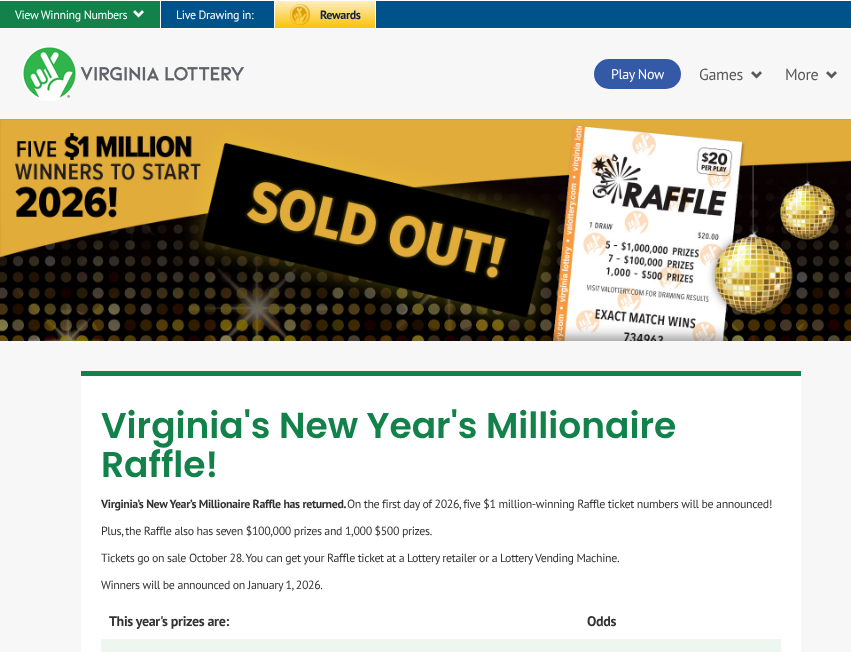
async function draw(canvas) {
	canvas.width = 851;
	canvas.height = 652;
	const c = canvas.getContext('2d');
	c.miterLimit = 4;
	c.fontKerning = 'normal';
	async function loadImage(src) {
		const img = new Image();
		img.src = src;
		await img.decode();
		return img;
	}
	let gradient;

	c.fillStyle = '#f7f7f7';
	c.fillRect(0, 0, 851, 652);
	for (const [x, y, w, h, color] of [
		[0, 0, 851, 1, '#fff'],
		[0, 1, 160, 27, '#12824a'],
		[160, 1, 1, 27, '#fff'],
	]) {
		c.fillStyle = color;
		c.fillRect(x, y, w, h);
	}
	c.letterSpacing = '-0.35px';
	c.font = '12px PT Sans';
	c.fillText('View Winning Numbers', 15, 19);
	c.drawImage(await loadImage('img1.png'), 133, 10, 11, 8);
	c.fillStyle = '#00528b';
	c.fillRect(161, 1, 113, 27);
	c.fillStyle = '#fff';
	c.fillRect(274, 1, 1, 27);
	c.fillText('Live Drawing in:', 176, 19);
	gradient = c.createLinearGradient(325, 1, 325, 28);
	gradient.addColorStop(0, '#ffeec2');
	gradient.addColorStop(1, '#fcc108');
	c.fillStyle = gradient;
	c.fillRect(275, 1, 100, 27);
	c.fillStyle = '#fff';
	c.fillRect(375, 1, 1, 27);
	c.drawImage(await loadImage('img2.png'), 290, 4, 20, 21);
	c.font = 'bold 12px PT Sans';
	c.fillStyle = '#0e2248';
	c.fillText('Rewards', 320, 19);
	c.fillStyle = '#00528b';
	c.fillRect(376, 1, 475, 27);
	c.fillStyle = '#fff';
	c.fillRect(0, 28, 851, 1);
	c.drawImage(await loadImage('img3.png'), 22, 46, 222, 55);
	c.fillStyle = '#3459a6';
	c.beginPath();
	c.roundRect(594, 59, 87, 30, 15);
	c.fill();
	c.font = '14px PT Sans';
	c.fillStyle = '#fff';
	c.fillText('Play Now', 611, 79);
	c.font = '16px PT Sans';
	c.fillStyle = '#595959';
	c.fillText('Games', 699, 80);
	c.drawImage(await loadImage('img4.png'), 751, 71, 11, 8);
	c.fillText('More', 785, 80);
	c.drawImage(await loadImage('img4.png'), 826, 71, 11, 8);
	c.drawImage(await loadImage('img5.png'), 0, 119, 851, 222);
	c.fillStyle = '#fff';
	c.fillRect(81, 376, 720, 276);
	c.fillStyle = '#12824a';
	c.fillRect(81, 371, 720, 5);
	c.letterSpacing = '0px';
	c.font = '600 36px Poppins';
	c.fillText('Virginia\'s New Year\'s Millionaire', 101, 438);
	c.fillText('Raffle!', 101, 477);
	c.letterSpacing = '-0.35px';
	c.font = 'bold 11.9px PT Sans';
	c.fillStyle = '#333';
	c.fillText('Virginia’s New Year’s Millionaire Raffle has returned.', 101, 508);
	c.font = '11.9px PT Sans';
	for (const [text, x, y] of [
		['On the first day of 2026, five $1 million-winning Raffle ticket numbers will be announced!', 347, 508],
		['Plus, the Raffle also has seven $100,000 prizes and 1,000 $500 prizes.', 101, 535],
		['Tickets go on sale October 28. You can get your Raffle ticket at a Lottery retailer or a Lottery Vending Machine.', 101, 562],
		['Winners will be announced on January 1, 2026.', 101, 589],
	]) {
		c.fillText(text, x, y);
	}
	c.font = 'bold 14px PT Sans';
	c.fillText('This year\'s prizes are:', 109, 626);
	c.fillText('Odds', 587, 626);
	c.fillStyle = '#eef7ef';
	c.fillRect(101, 639, 680, 13);
}

draw(document.querySelector('canvas'));
